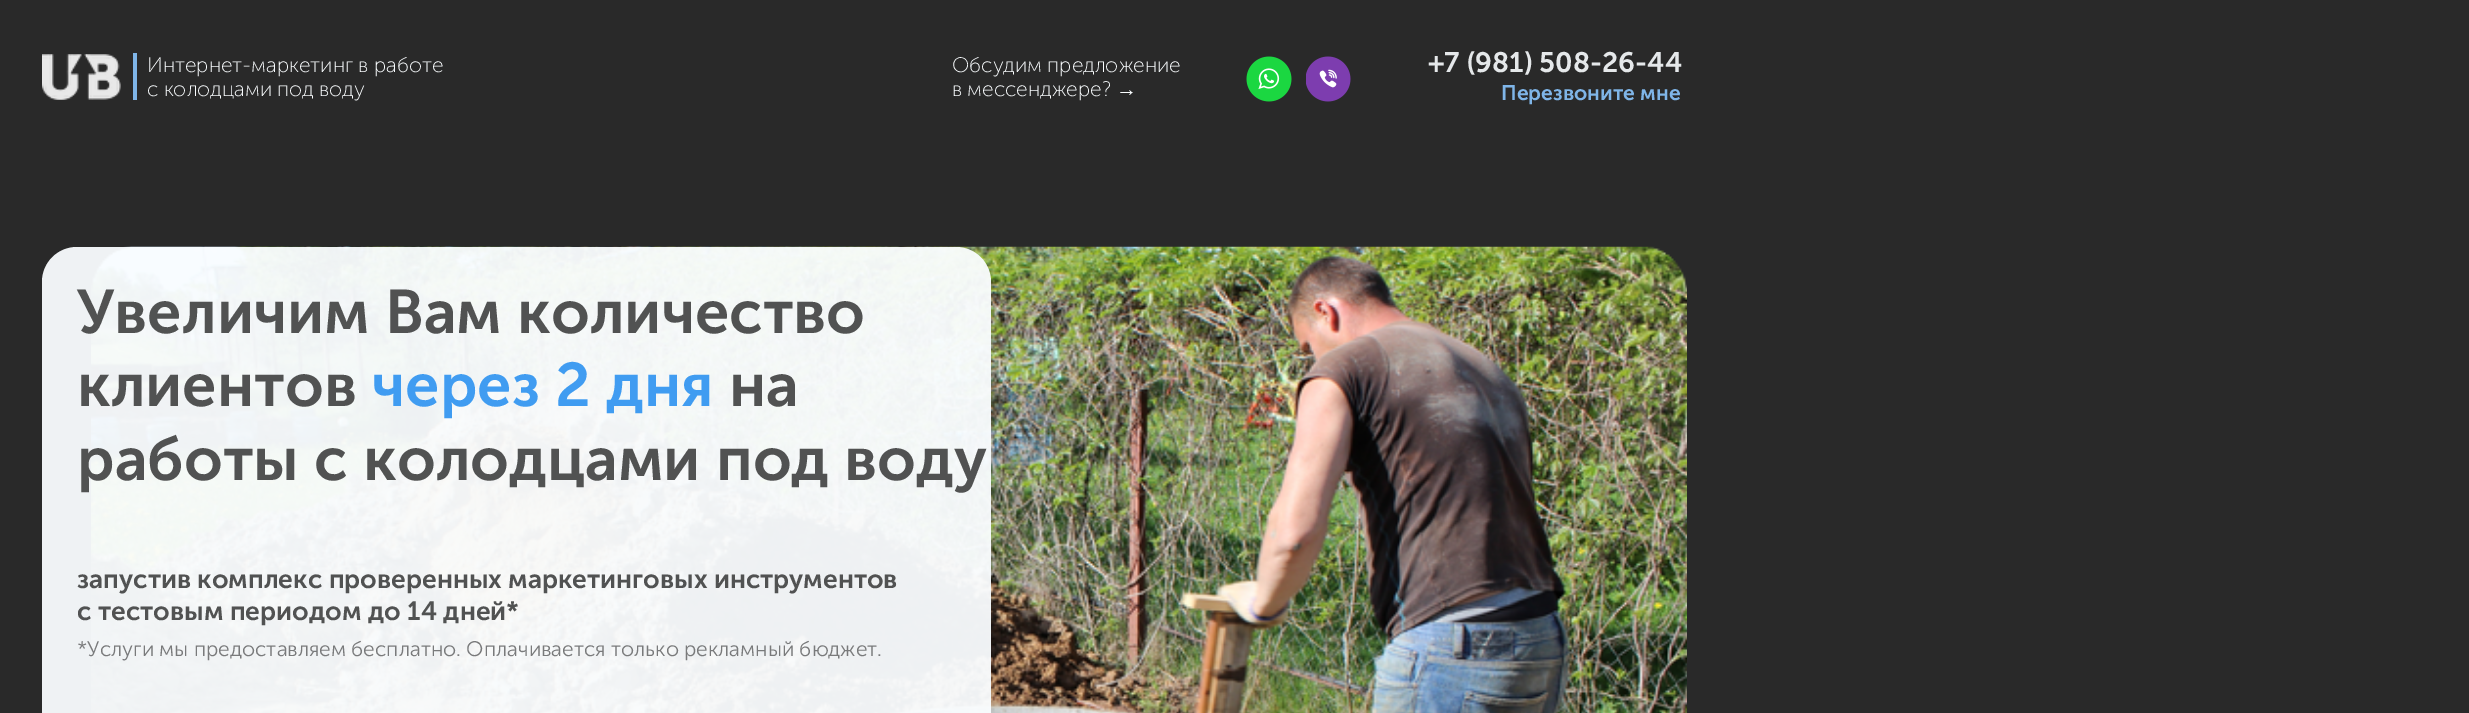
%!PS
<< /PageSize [2469 713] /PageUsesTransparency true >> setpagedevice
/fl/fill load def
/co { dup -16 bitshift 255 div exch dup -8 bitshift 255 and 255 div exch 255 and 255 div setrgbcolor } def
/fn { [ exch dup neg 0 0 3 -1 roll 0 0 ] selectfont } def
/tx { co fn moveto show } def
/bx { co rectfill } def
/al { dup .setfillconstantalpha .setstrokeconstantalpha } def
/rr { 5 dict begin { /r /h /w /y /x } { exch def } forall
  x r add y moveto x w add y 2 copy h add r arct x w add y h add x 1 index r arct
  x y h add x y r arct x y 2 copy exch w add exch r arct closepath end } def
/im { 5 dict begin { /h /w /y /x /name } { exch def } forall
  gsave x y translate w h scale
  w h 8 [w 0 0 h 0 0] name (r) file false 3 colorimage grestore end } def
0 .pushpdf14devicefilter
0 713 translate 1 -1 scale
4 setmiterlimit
0 0 2469 713 16#292929 bx
(media/1.raw) 42 54 79 46 im
133 53 4 47 16#7FB5E8 bx
(media/2.raw) 1246 56 46 46 im
(media/3.raw) 1306 56 45 46 im
(media/4.raw) 91 246 1596 467 im
0.95 al
16#FAFDFF co
42 247 949 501 35 rr fl
1 al
(Интернет-маркетинг в работе) 147 72 /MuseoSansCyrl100-Regular 21 16#FAFDFF tx
(с колодцами под воду) 147 96 /MuseoSansCyrl100-Regular 21 16#FAFDFF tx
(Обсудим предложение) 952 72 /MuseoSansCyrl100-Regular 21 16#FAFDFF tx
(в мессенджере?) 952 96 /MuseoSansCyrl100-Regular 21 16#FAFDFF tx
(→) 1116 96 /LiberationSans-Regular 21 16#FAFDFF tx
(+7 \(981\) 508-26-44) 1428 72 /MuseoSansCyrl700-Regular 28 16#E5E8EA tx
(Перезвоните мне) 1501 100 /MuseoSansCyrl700-Regular 21 16#7FB5E8 tx
(Увеличим Вам количество) 77 333 /MuseoSansCyrl700-Regular 61.25 16#515252 tx
(клиентов) 77 406 /MuseoSansCyrl700-Regular 61.25 16#515252 tx
(через 2 дня) 372 406 /MuseoSansCyrl700-Regular 61.25 16#409CF1 tx
(на) 729 406 /MuseoSansCyrl700-Regular 61.25 16#515252 tx
(работы с колодцами под воду) 77 480 /MuseoSansCyrl700-Regular 61.25 16#515252 tx
(запустив комплекс проверенных маркетинговых инструментов) 77 588 /MuseoSansCyrl700-Regular 26.25 16#515252 tx
(с тестовым периодом до 14 дней*) 77 620 /MuseoSansCyrl700-Regular 26.25 16#515252 tx
(*Услуги мы предоставляем бесплатно. Оплачивается только рекламный бюджет.) 77 656 /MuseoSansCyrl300-Regular 21 16#797A7B tx
.poppdf14devicefilter showpage
